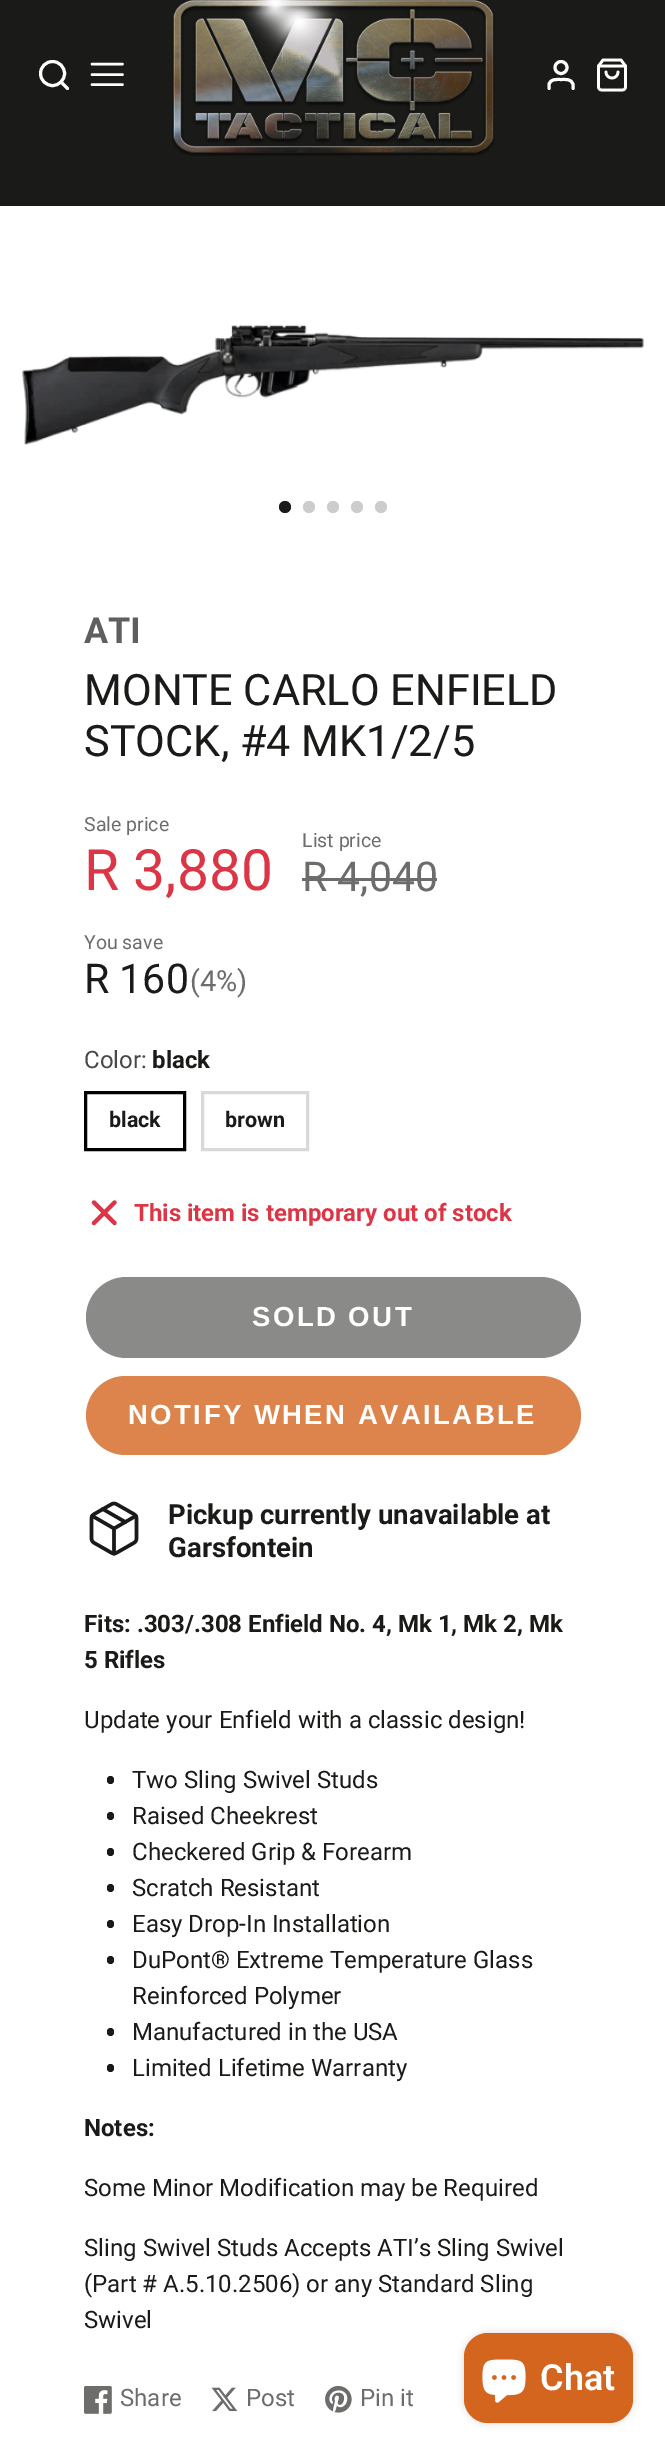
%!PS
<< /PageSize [665 2454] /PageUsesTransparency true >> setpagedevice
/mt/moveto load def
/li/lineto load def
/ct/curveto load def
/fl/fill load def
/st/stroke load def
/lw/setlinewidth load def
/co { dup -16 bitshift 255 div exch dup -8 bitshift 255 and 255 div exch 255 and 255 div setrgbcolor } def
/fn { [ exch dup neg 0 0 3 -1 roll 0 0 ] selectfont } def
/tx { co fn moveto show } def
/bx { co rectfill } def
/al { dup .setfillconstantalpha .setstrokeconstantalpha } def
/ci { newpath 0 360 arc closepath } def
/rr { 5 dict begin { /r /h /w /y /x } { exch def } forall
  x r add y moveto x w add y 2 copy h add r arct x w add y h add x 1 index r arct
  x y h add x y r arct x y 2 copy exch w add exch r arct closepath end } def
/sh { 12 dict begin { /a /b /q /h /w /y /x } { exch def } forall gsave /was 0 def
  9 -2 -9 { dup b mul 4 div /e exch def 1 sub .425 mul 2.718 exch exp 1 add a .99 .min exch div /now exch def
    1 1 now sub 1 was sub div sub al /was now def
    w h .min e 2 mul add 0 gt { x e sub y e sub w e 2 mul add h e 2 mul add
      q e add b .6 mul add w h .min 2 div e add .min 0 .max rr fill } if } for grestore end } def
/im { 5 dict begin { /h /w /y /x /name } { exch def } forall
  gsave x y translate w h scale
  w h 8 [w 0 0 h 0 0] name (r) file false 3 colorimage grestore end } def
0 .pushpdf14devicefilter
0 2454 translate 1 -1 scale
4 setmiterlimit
0 0 665 2454 16#FFFFFF bx
0 0 665 206 16#1A1B18 bx
16#FFFFFF co
3 lw
52.5 73.5 12 ci st
1 setlinecap
1 setlinejoin
67.5 88.5 mt 61 82 li st
2.5 lw
92 74.5 mt 122.5 74.5 li 92 64 mt 122.5 64 li 92 84.5 mt 122.5 84.5 li st
(media/1.raw) 172 0 323 156 im
3 lw
0 setlinecap
0 setlinejoin
561 67.5 6 ci st
1 setlinecap
1 setlinejoin
573 88.5 mt 573 84.5 li 571.5 78.5 565.5 79.5 561 79.5 ct 556.5 79.5 550.5 78.5 549 84.5 ct 549 88.5 li st
(media/2.raw) 597 58 30 34 im
(media/3.raw) 21 324 624 121 im
16#1A1B18 co
285 507 6 ci fl
16#CCCCCC co
309 507 6 ci fl
333 507 6 ci fl
357 507 6 ci fl
381 507 6 ci fl
302 878 135 3 16#6C6D6B bx
16#000000 co
0 setlinecap
0 setlinejoin
85.5 1092.5 99 57 rectstroke
16#D9D9D9 co
202.5 1092.5 105 57 rectstroke
16#DC3545 co
4.2 lw
1 setlinecap
1 setlinejoin
114.5 1202.5 mt 94 1223 li 94 1202.5 mt 114.5 1223 li st
16#8A8A89 co
86 1277 495 81 40.5 rr fl
16#DD844C co
86 1376 495 79 39.5 rr fl
(media/4.raw) 89 1501 50 55 im
16#1A1B18 co
107 1776 7 8 3.5 rr fl
107 1812 7 8 3.5 rr fl
107 1848 7 8 3.5 rr fl
107 1884 7 8 3.5 rr fl
107 1920 7 8 3.5 rr fl
107 1956 7 8 3.5 rr fl
107 2028 7 8 3.5 rr fl
107 2064 7 8 3.5 rr fl
(media/5.raw) 84 2386 28 28 im
(media/6.raw) 211 2387 27 25 im
(media/7.raw) 325 2385 27 28 im
16#000000 co
464 2333 169 90 24 4 .15 sh
16#D4651F co
464 2333 169 90 24 rr fl
(media/8.raw) 482 2359 44 44 im
(ATI) 84 643 /Roboto-Bold 36 16#5F5F5D tx
(MONTE CARLO ENFIELD) 84 705 /Roboto-Regular 43.25 16#1A1B18 tx
(STOCK, #4 MK1/2/5) 84 756 /Roboto-Regular 43.25 16#1A1B18 tx
(Sale price) 84 831 /Roboto-Regular 19.5 16#6C6D6B tx
(R 3,880) 84 890 /Roboto-Regular 57 16#DC3545 tx
(List price) 302 847 /Roboto-Regular 19.5 16#6C6D6B tx
(R 4,040) 302 891 /Roboto-Regular 41 16#6C6D6B tx
(You save) 84 949 /Roboto-Regular 19.5 16#6C6D6B tx
(R 160) 84 993 /Roboto-Regular 41 16#1A1B18 tx
(\(4%\)) 190 991 /Roboto-Regular 29 16#6C6D6B tx
(Color:) 84 1068 /Roboto-Regular 24 16#484946 tx
(black) 152 1068 /Roboto-Bold 24 16#1A1B18 tx
(black) 109 1127 /Roboto-Bold 21.5 16#1A1B18 tx
(brown) 225 1127 /Roboto-Bold 21.5 16#1A1B18 tx
(This item is temporary out of stock) 134 1221 /Roboto-Bold 24 16#DC3545 tx
/LiberationSans-Bold 27.6 fn
16#FFFFFF co
252 1326 mt 2.4 0 (SOLD OUT) ashow
128 1424 mt 2.4 0 (NOTIFY WHEN AVAILABLE) ashow
(Pickup currently unavailable at) 168 1524 /Roboto-Bold 27.6 16#1A1B18 tx
(Garsfontein) 168 1557 /Roboto-Bold 27.6 16#1A1B18 tx
(Fits: .303/.308 Enfield No. 4, Mk 1, Mk 2, Mk) 84 1632 /Roboto-Bold 24 16#1A1B18 tx
(5 Rifles) 84 1668 /Roboto-Bold 24 16#1A1B18 tx
(Update your Enfield with a classic design!) 84 1728 /Roboto-Regular 24 16#1A1B18 tx
(Two Sling Swivel Studs) 132 1788 /Roboto-Regular 24 16#1A1B18 tx
(Raised Cheekrest) 132 1824 /Roboto-Regular 24 16#1A1B18 tx
(Checkered Grip & Forearm) 132 1860 /Roboto-Regular 24 16#1A1B18 tx
(Scratch Resistant) 132 1896 /Roboto-Regular 24 16#1A1B18 tx
(Easy Drop-In Installation) 132 1932 /Roboto-Regular 24 16#1A1B18 tx
(DuPont® Extreme Temperature Glass) 132 1968 /Roboto-Regular 24 16#1A1B18 tx
(Reinforced Polymer) 132 2004 /Roboto-Regular 24 16#1A1B18 tx
(Manufactured in the USA) 132 2040 /Roboto-Regular 24 16#1A1B18 tx
(Limited Lifetime Warranty) 132 2076 /Roboto-Regular 24 16#1A1B18 tx
(Notes:) 84 2136 /Roboto-Bold 24 16#1A1B18 tx
(Some Minor Modification may be Required) 84 2196 /Roboto-Regular 24 16#1A1B18 tx
(Sling Swivel Studs Accepts ATI’s Sling Swivel) 84 2256 /Roboto-Regular 24 16#1A1B18 tx
(\(Part # A.5.10.2506\) or any Standard Sling) 84 2292 /Roboto-Regular 24 16#1A1B18 tx
(Swivel) 84 2328 /Roboto-Regular 24 16#1A1B18 tx
(Share) 120 2406 /Roboto-Regular 24 16#6C6D6B tx
(Post) 246 2406 /Roboto-Regular 24 16#6C6D6B tx
(Pin it) 360 2406 /Roboto-Regular 24 16#6C6D6B tx
(Chat) 540 2390 /Roboto-SemiBold 36 16#FFFFFF tx
.poppdf14devicefilter showpage
